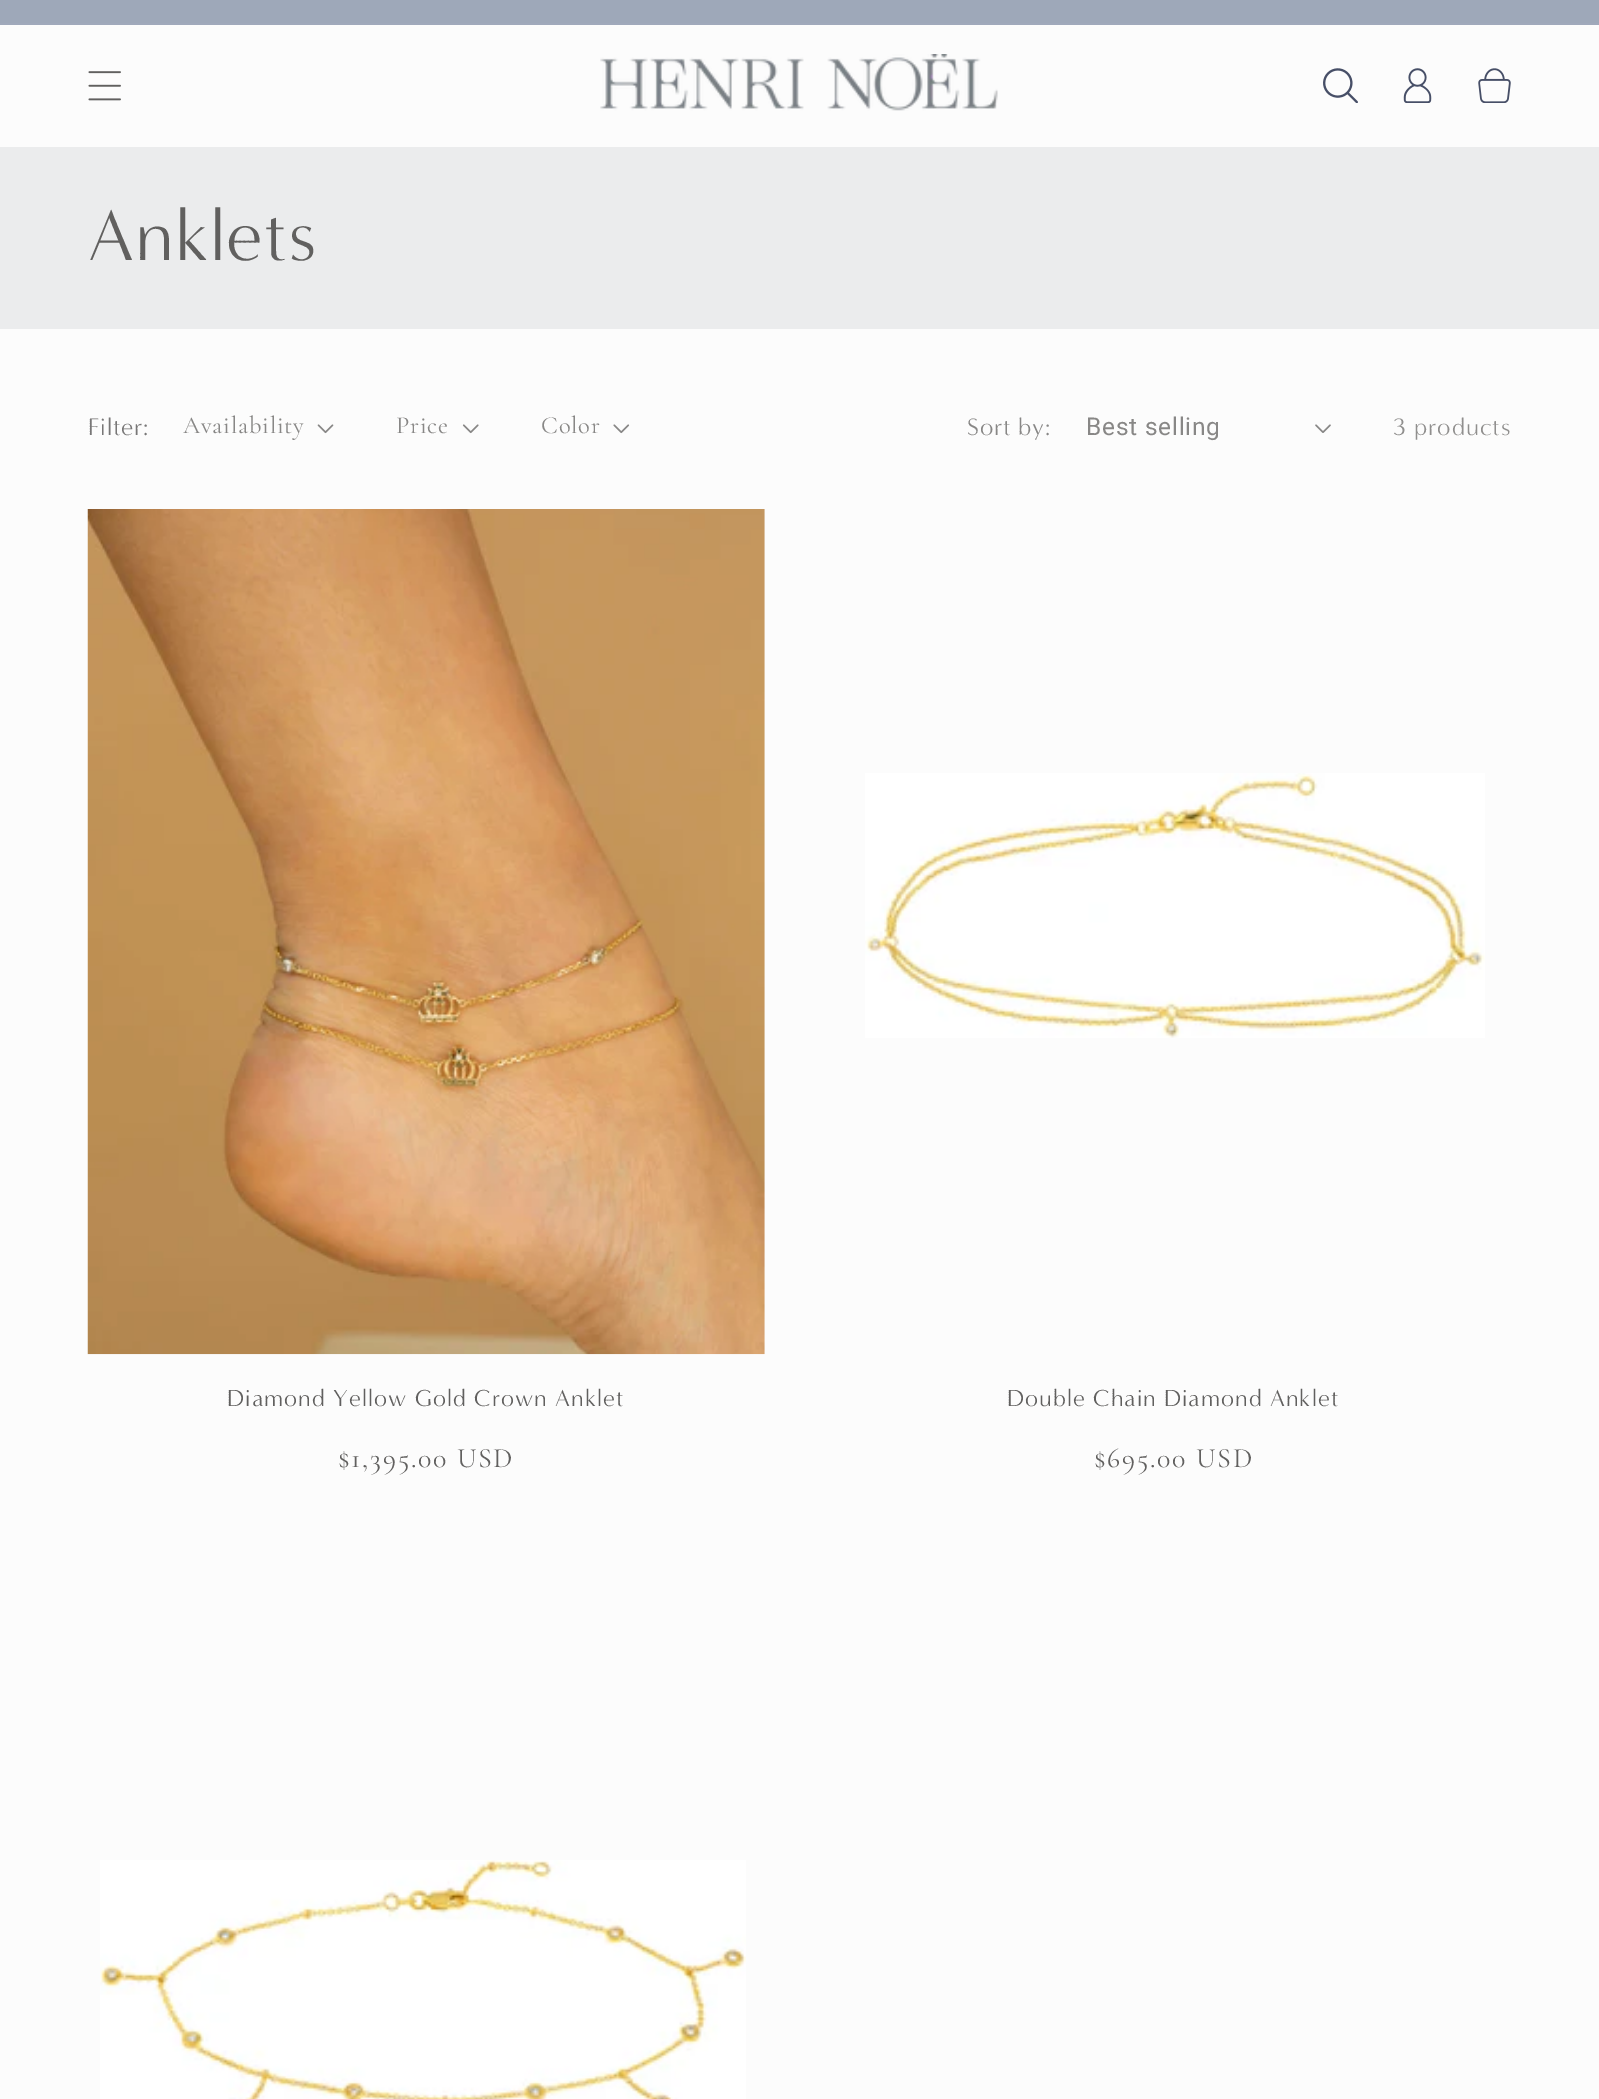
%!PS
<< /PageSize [1599 2099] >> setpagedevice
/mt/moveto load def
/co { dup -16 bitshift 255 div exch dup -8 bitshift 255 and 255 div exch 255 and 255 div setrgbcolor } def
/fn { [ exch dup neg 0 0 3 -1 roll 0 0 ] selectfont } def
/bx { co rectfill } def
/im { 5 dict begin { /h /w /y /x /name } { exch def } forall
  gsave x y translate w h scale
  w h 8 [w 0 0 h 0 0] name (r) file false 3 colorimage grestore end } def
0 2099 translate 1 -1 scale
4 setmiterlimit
0 0 1599 2099 16#FCFCFC bx
0 23 1599 2 16#A0A9BB bx
0 0 1599 23 16#9EA8B9 bx
(media/1.raw) 88 71 33 30 im
(media/2.raw) 600 54 398 57 im
(media/3.raw) 1323 68 35 35 im
(media/4.raw) 1403 68 29 35 im
(media/5.raw) 1478 68 33 35 im
0 147 1599 182 16#EBECED bx
(media/6.raw) 317 424 17 10 im
(media/7.raw) 462 424 17 10 im
(media/8.raw) 613 424 17 10 im
(media/9.raw) 1315 424 16 9 im
(media/10.raw) 87 509 678 846 im
(media/11.raw) 865 773 620 265 im
(media/12.raw) 100 1860 646 239 im
/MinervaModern-Regular 73.5 fn
16#61605F co
88 260 mt 1.1 0 (Anklets) ashow
/MinervaModern-Regular 24.5 fn
16#787777 co
88 435 mt .75 0 (Filter:) ashow
/CormorantGaramond-Regular 24.5 fn
16#888786 co
183 433 mt .75 0 (Availability) ashow
396 433 mt .75 0 (Price) ashow
541 433 mt .75 0 (Color) ashow
/MinervaModern-Regular 24.5 fn
967 435 mt .75 0 (Sort by:) ashow
/Roboto-Regular 24.5 fn
1086 435 mt .75 0 (Best selling) ashow
/MinervaModern-Regular 24.5 fn
16#908F8E co
1393 435 mt 1 0 (3 products) ashow
/MinervaModern-Regular 23.9 fn
16#61605F co
227 1406 mt 1.1 0 (Diamond Yellow Gold Crown Anklet) ashow
/CormorantGaramond-Regular 28 fn
338 1467 mt 1.75 0 ($1,395.00 USD) ashow
/MinervaModern-Regular 23.9 fn
1007 1406 mt 1.1 0 (Double Chain Diamond Anklet) ashow
/CormorantGaramond-Regular 28 fn
1094 1467 mt 1.75 0 ($695.00 USD) ashow
showpage
